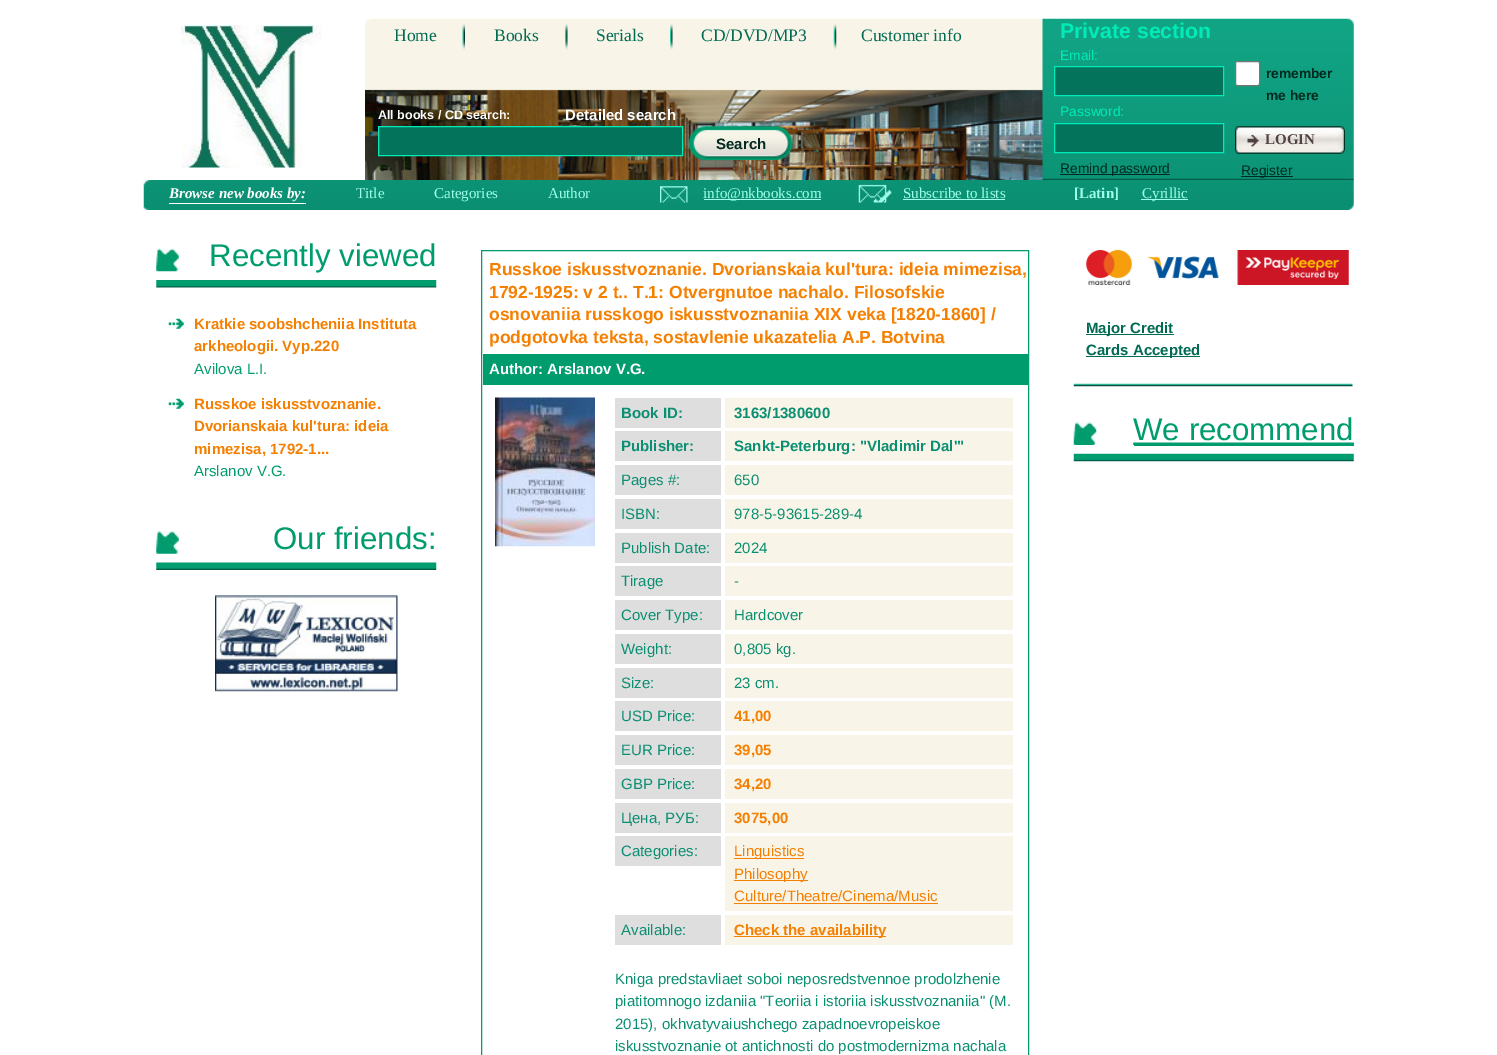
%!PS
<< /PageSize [1497 1055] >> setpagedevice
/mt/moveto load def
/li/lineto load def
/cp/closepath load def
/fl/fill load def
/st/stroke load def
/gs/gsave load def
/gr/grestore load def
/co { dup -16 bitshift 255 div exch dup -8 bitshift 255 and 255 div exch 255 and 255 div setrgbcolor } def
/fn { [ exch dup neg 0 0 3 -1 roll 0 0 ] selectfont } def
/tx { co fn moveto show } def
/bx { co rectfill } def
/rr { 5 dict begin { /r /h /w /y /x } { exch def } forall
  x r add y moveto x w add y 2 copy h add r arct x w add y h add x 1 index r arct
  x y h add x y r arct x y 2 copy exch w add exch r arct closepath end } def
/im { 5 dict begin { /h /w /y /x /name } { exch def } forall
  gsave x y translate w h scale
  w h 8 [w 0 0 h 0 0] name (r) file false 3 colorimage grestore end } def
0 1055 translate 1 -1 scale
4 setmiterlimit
0 0 1497 1055 16#FFFFFF bx
(media/1.raw) 181 25 141 143 im
(media/2.raw) 365 18 989 162 im
(media/3.raw) 462 23 3 27 im
(media/4.raw) 565 23 3 27 im
(media/4.raw) 670 23 3 27 im
(media/5.raw) 833 23 4 27 im
16#03735B co
1054.5 66.5 mt 1223.5 66.5 li 1223.5 95.5 li 1054.5 95.5 li cp gs fl gr
16#00EBB7 co
st
16#03735B co
1054.5 123.5 mt 1223.5 123.5 li 1223.5 152.5 li 1054.5 152.5 li cp gs fl gr
16#00EBB7 co
st
1060 174 110 1 16#002920 bx
16#FFFFFF co
1235.5 61.5 24 24 2 rr gs fl gr
16#767676 co
st
(media/6.raw) 1235 126 110 28 im
1241 176 52 1 16#002920 bx
16#03735B co
378.5 126.5 mt 682.5 126.5 li 682.5 155.5 li 378.5 155.5 li cp gs fl gr
16#00EBB7 co
st
(media/7.raw) 688 126 105 34 im
(media/8.raw) 143 180 1211 30 im
169 203 137 1 16#FFFFFF bx
(media/9.raw) 660 186 30 17 im
704 199 117 1 16#9EFFEA bx
(media/10.raw) 858 184 34 19 im
903 199 102 1 16#9EFFEA bx
1141 199 47 1 16#9EFFEA bx
(media/11.raw) 156 248 23 24 im
(media/12.raw) 156 280 281 8 im
(media/13.raw) 168 318 16 11 im
(media/13.raw) 168 398 16 11 im
(media/14.raw) 156 531 23 23 im
(media/15.raw) 156 562 281 8 im
(media/16.raw) 215 595 183 97 im
16#009C6E co
481.5 250.5 547 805 rectstroke
483 354 545 31 16#009C6E bx
(media/17.raw) 495 397 100 150 im
615 398 106 30 16#DEDEDE bx
725 398 288 30 16#F8F5E8 bx
615 431 106 30 16#DEDEDE bx
725 431 288 30 16#F8F5E8 bx
615 465 106 30 16#DEDEDE bx
725 465 288 30 16#F8F5E8 bx
615 499 106 30 16#DEDEDE bx
725 499 288 30 16#F8F5E8 bx
615 533 106 30 16#DEDEDE bx
725 533 288 30 16#F8F5E8 bx
615 566 106 30 16#DEDEDE bx
725 566 288 30 16#F8F5E8 bx
615 600 106 30 16#DEDEDE bx
725 600 288 30 16#F8F5E8 bx
615 634 106 30 16#DEDEDE bx
725 634 288 30 16#F8F5E8 bx
615 668 106 30 16#DEDEDE bx
725 668 288 30 16#F8F5E8 bx
615 701 106 30 16#DEDEDE bx
725 701 288 30 16#F8F5E8 bx
615 735 106 30 16#DEDEDE bx
725 735 288 30 16#F8F5E8 bx
615 769 106 30 16#DEDEDE bx
725 769 288 30 16#F8F5E8 bx
615 803 106 30 16#DEDEDE bx
725 803 288 30 16#F8F5E8 bx
615 836 106 30 16#DEDEDE bx
725 836 288 75 16#F8F5E8 bx
734 858 70 1 16#F57F00 bx
734 880 74 1 16#F57F00 bx
734 903 204 1 16#F57F00 bx
615 915 106 30 16#DEDEDE bx
725 915 288 30 16#F8F5E8 bx
734 936 152 1 16#F57F00 bx
(media/18.raw) 1073 383 280 4 im
(media/19.raw) 1086 250 263 35 im
1086 334 88 1 16#006B53 bx
1086 356 114 1 16#006B53 bx
(media/20.raw) 1073 422 24 23 im
(media/21.raw) 1073 442 281 20 im
1134 443 220 3 16#009C6E bx
(Home) 394 41 /LiberationSerif-Regular 17.5 16#006A53 tx
(Books) 494 41 /LiberationSerif-Regular 17.5 16#006A53 tx
(Serials) 596 41 /LiberationSerif-Regular 17.5 16#006A53 tx
(CD/DVD/MP3) 701 41 /LiberationSerif-Regular 17.5 16#006A53 tx
(Customer info) 861 41 /LiberationSerif-Regular 17.5 16#006A53 tx
(Private section) 1060 38 /LiberationSans-Bold 21.25 16#00EBB7 tx
(Email:) 1060 60 /LiberationSans-Regular 13.75 16#00EBB7 tx
(Password:) 1060 116 /LiberationSans-Regular 13.75 16#00EBB7 tx
(Remind password) 1060 173 /LiberationSans-Regular 13.75 16#002920 tx
(remember) 1266 78 /LiberationSans-Bold 13.75 16#002920 tx
(me here) 1266 100 /LiberationSans-Bold 13.75 16#002920 tx
(LOGIN) 1265 144 /LiberationSerif-Bold 15 16#514141 tx
(Register) 1241 175 /LiberationSans-Regular 13.75 16#002920 tx
(All books / CD search:) 378 119 /LiberationSans-Bold 12.5 16#FFFFFF tx
(Detailed search) 565 120 /LiberationSans-Bold 15 16#FFFFFF tx
(Search) 716 149 /LiberationSans-Bold 15 16#002920 tx
(Browse new books by:) 169 198 /LiberationSerif-BoldItalic 15 16#FFFFFF tx
(Title) 356 198 /LiberationSerif-Regular 15 16#9EFFEA tx
(Categories) 434 198 /LiberationSerif-Regular 15 16#9EFFEA tx
(Author) 548 198 /LiberationSerif-Regular 15 16#9EFFEA tx
(info@nkbooks.com) 703 198 /LiberationSerif-Regular 15 16#9EFFEA tx
(Subscribe to lists) 903 198 /LiberationSerif-Regular 15 16#9EFFEA tx
([Latin]) 1074 198 /LiberationSerif-Bold 15 16#9EFFEA tx
(Cyrillic) 1142 198 /LiberationSerif-Regular 15 16#9EFFEA tx
(Recently viewed) 209 266 /LiberationSans-Regular 31.25 16#009C6E tx
(Kratkie soobshcheniia Instituta) 194 329 /LiberationSans-Bold 15 16#F57F00 tx
(arkheologii. Vyp.220) 194 351 /LiberationSans-Bold 15 16#F57F00 tx
(Avilova L.I.) 194 374 /LiberationSans-Regular 15 16#009C6E tx
(Russkoe iskusstvoznanie.) 194 409 /LiberationSans-Bold 15 16#F57F00 tx
(Dvorianskaia kul'tura: ideia) 194 431 /LiberationSans-Bold 15 16#F57F00 tx
(mimezisa, 1792-1...) 194 454 /LiberationSans-Bold 15 16#F57F00 tx
(Arslanov V.G.) 194 476 /LiberationSans-Regular 15 16#009C6E tx
(Our friends:) 273 549 /LiberationSans-Regular 31.25 16#009C6E tx
(Russkoe iskusstvoznanie. Dvorianskaia kul'tura: ideia mimezisa,) 489 275 /LiberationSans-Bold 17.5 16#F57F00 tx
(1792-1925: v 2 t.. T.1: Otvergnutoe nachalo. Filosofskie) 489 298 /LiberationSans-Bold 17.5 16#F57F00 tx
(osnovaniia russkogo iskusstvoznaniia XIX veka [1820-1860] /) 489 320 /LiberationSans-Bold 17.5 16#F57F00 tx
(podgotovka teksta, sostavlenie ukazatelia A.P. Botvina) 489 343 /LiberationSans-Bold 17.5 16#F57F00 tx
(Author: Arslanov V.G.) 489 374 /LiberationSans-Bold 15 16#FFFFFF tx
(Book ID:) 621 418 /LiberationSans-Bold 15 16#0B8F72 tx
(3163/1380600) 734 418 /LiberationSans-Bold 15 16#0B8F72 tx
(Publisher:) 621 451 /LiberationSans-Bold 15 16#0B8F72 tx
(Sankt-Peterburg: "Vladimir Dal'") 734 451 /LiberationSans-Bold 15 16#0B8F72 tx
(Pages #:) 621 485 /LiberationSans-Regular 15 16#0B8F72 tx
(650) 734 485 /LiberationSans-Regular 15 16#0B8F72 tx
(ISBN:) 621 519 /LiberationSans-Regular 15 16#0B8F72 tx
(978-5-93615-289-4) 734 519 /LiberationSans-Regular 15 16#0B8F72 tx
(Publish Date:) 621 553 /LiberationSans-Regular 15 16#0B8F72 tx
(2024) 734 553 /LiberationSans-Regular 15 16#0B8F72 tx
(Tirage) 621 586 /LiberationSans-Regular 15 16#0B8F72 tx
(-) 734 586 /LiberationSans-Regular 15 16#0B8F72 tx
(Cover Type:) 621 620 /LiberationSans-Regular 15 16#0B8F72 tx
(Hardcover) 734 620 /LiberationSans-Regular 15 16#0B8F72 tx
(Weight:) 621 654 /LiberationSans-Regular 15 16#0B8F72 tx
(0,805 kg.) 734 654 /LiberationSans-Regular 15 16#0B8F72 tx
(Size:) 621 688 /LiberationSans-Regular 15 16#0B8F72 tx
(23 cm.) 734 688 /LiberationSans-Regular 15 16#0B8F72 tx
(USD Price:) 621 721 /LiberationSans-Regular 15 16#0B8F72 tx
(41,00) 734 721 /LiberationSans-Bold 15 16#F57F00 tx
(EUR Price:) 621 755 /LiberationSans-Regular 15 16#0B8F72 tx
(39,05) 734 755 /LiberationSans-Bold 15 16#F57F00 tx
(GBP Price:) 621 789 /LiberationSans-Regular 15 16#0B8F72 tx
(34,20) 734 789 /LiberationSans-Bold 15 16#F57F00 tx
(Цена, РУБ:) 621 823 /LiberationSans-Regular 15 16#0B8F72 tx
(3075,00) 734 823 /LiberationSans-Bold 15 16#F57F00 tx
(Categories:) 621 856 /LiberationSans-Regular 15 16#0B8F72 tx
(Linguistics) 734 856 /LiberationSans-Regular 15 16#F57F00 tx
(Philosophy) 734 879 /LiberationSans-Regular 15 16#F57F00 tx
(Culture/Theatre/Cinema/Music) 734 901 /LiberationSans-Regular 15 16#F57F00 tx
(Available:) 621 935 /LiberationSans-Regular 15 16#0B8F72 tx
(Check the availability) 734 935 /LiberationSans-Bold 15 16#F57F00 tx
(Kniga predstavliaet soboi neposredstvennoe prodolzhenie) 615 984 /LiberationSans-Regular 15 16#0B8F72 tx
(piatitomnogo izdaniia "Teoriia i istoriia iskusstvoznaniia" \(M.) 615 1006 /LiberationSans-Regular 15 16#0B8F72 tx
(2015\), okhvatyvaiushchego zapadnoevropeiskoe) 615 1029 /LiberationSans-Regular 15 16#0B8F72 tx
(iskusstvoznanie ot antichnosti do postmodernizma nachala) 615 1051 /LiberationSans-Regular 15 16#0B8F72 tx
(Major Credit) 1086 333 /LiberationSans-Bold 15 16#006A53 tx
(Cards Accepted) 1086 355 /LiberationSans-Bold 15 16#006A53 tx
(We recommend) 1133 440 /LiberationSans-Regular 31.25 16#009C6E tx
showpage
